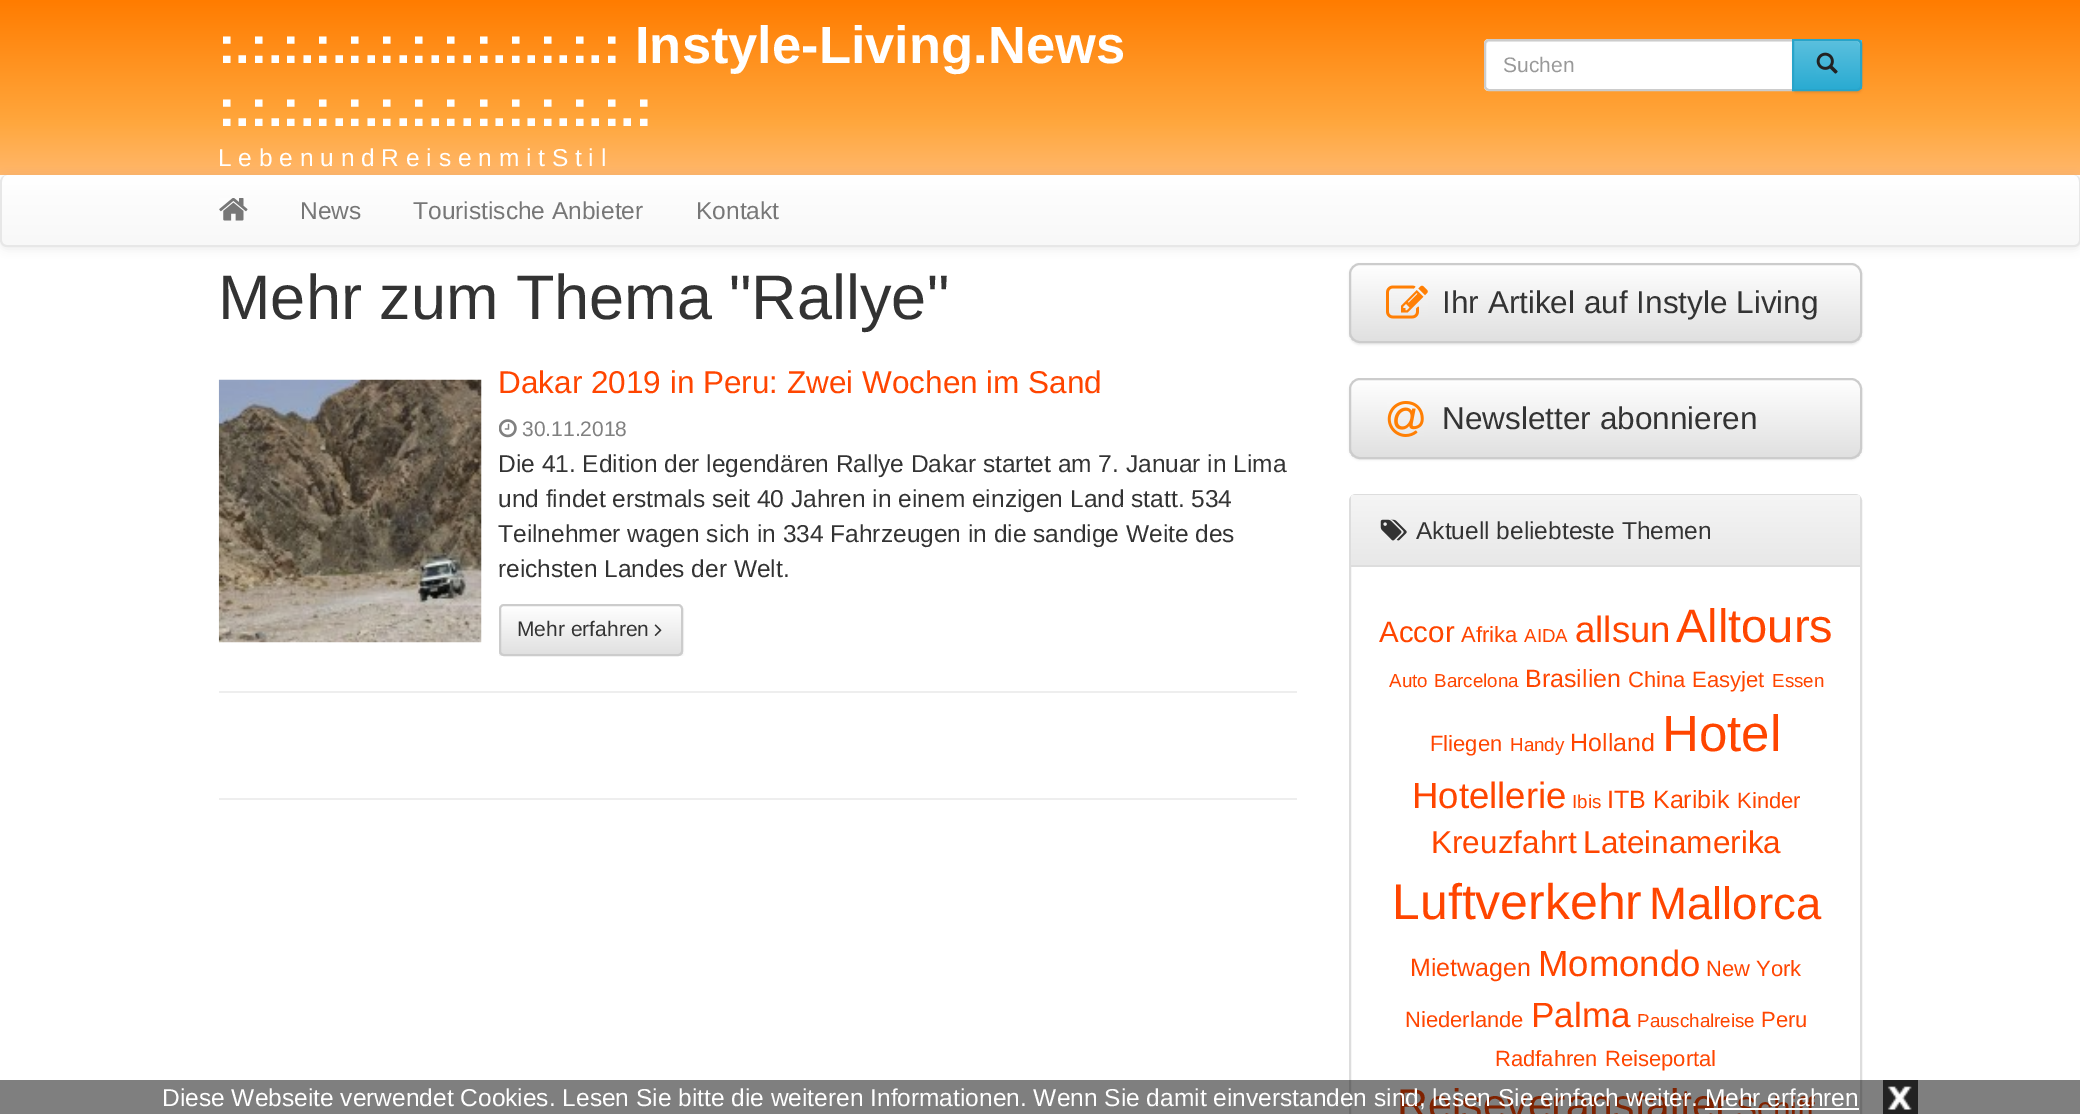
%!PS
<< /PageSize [2080 1114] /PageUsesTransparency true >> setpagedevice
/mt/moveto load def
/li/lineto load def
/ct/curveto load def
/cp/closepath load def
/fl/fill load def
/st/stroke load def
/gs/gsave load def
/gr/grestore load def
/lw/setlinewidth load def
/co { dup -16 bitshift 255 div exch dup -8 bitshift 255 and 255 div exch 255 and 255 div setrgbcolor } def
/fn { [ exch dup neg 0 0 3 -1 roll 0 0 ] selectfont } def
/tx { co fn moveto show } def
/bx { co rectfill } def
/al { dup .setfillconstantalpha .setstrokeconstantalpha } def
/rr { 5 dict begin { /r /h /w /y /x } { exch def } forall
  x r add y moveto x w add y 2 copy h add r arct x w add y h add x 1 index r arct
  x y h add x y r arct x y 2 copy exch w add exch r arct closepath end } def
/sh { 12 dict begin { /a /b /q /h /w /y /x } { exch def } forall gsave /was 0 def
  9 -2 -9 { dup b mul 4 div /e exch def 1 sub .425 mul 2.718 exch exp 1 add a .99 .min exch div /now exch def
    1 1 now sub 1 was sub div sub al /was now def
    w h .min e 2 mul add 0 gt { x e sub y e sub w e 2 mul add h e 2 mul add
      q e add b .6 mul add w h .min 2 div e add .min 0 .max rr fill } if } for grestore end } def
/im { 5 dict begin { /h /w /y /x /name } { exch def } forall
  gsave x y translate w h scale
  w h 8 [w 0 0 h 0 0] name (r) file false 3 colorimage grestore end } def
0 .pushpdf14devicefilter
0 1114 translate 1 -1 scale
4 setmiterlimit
0 0 2080 1114 16#FFFFFF bx
gs 0 0 mt 2080 0 li 2080 175 li 0 175 li cp clip newpath
<< /ShadingType 2 /ColorSpace /DeviceRGB /Coords [1040 0 1040 175] /Extend [true true] /Function << /FunctionType 3 /Domain [0 1] /Functions [<< /FunctionType 2 /Domain [0 1] /C0 [1 .486 0] /C1 [1 .655 .239] /N 1 >> << /FunctionType 2 /Domain [0 1] /C0 [1 .655 .239] /C1 [1 .718 .42] /N 1 >>] /Bounds [.7] /Encode [0 1 0 1] >> >> shfill gr
1489 39 mt 1794 39 li 1794 91 li 1489 91 li 1486 91 1484 89 1484 86 ct 1484 44 li 1484 41 1486 39 1489 39 ct cp fl
16#ECECEC co
1489 42 mt 1792 42 li 1792 40 li 1488 40 li 1486 41 1486 44 1486 46 ct 1486 44 1487 42 1489 42 ct cp fl
16#CCCCCC co
2 lw
1489 40 mt 1793 40 li 1793 90 li 1489 90 li 1487 90 1485 88 1485 86 ct 1485 44 li 1485 42 1487 40 1489 40 ct cp st
16#000000 co
1792 40 70 53 5 1 .07 sh
gs
1792 39 mt 1857 39 li 1860 39 1862 41 1862 44 ct 1862 86 li 1862 89 1860 91 1857 91 ct 1792 91 li cp clip newpath
gs 1794 40 mt 1862 40 li 1862 89 li 1794 89 li cp clip newpath
<< /ShadingType 2 /ColorSpace /DeviceRGB /Coords [1827 40 1827 89] /Extend [true true] /Function << /FunctionType 2 /Domain [0 1] /C0 [.357 .753 .871] /C1 [.165 .671 .824] /N 1 >> >> shfill gr
gr
0.15 al
16#FFFFFF co
1794 42 mt 1857 42 li 1859 42 1860 44 1860 46 ct 1860 44 li 1860 42 1858 40 1856 40 ct 1794 40 li cp fl
1 al
16#28A4C9 co
1793 40 mt 1857 40 li 1859 40 1861 42 1861 44 ct 1861 86 li 1861 88 1859 90 1857 90 ct 1793 90 li cp st
(media/1.raw) 1816 52 22 22 im
16#000000 co
1349 264 513 81 11 1 .07 sh
gs
1349 263 513 80 11 rr clip newpath
gs 1349 264 mt 1862 264 li 1862 341 li 1349 341 li cp clip newpath
<< /ShadingType 2 /ColorSpace /DeviceRGB /Coords [1606 264 1606 341] /Extend [true true] /Function << /FunctionType 2 /Domain [0 1] /C0 [1 1 1] /C1 [.878 .878 .878] /N 1 >> >> shfill gr
gr
16#CCCCCC co
1350 264 511 78 10 rr st
16#000000 co
0 177 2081 72 7 4.5 .07 sh
gs
0 175 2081 72 7 rr clip newpath
gs 7 175 mt 2074 175 li 2078 175 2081 178 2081 182 ct 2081 245 li 0 245 li 0 182 li 0 178 3 175 7 175 ct cp clip newpath
<< /ShadingType 2 /ColorSpace /DeviceRGB /Coords [1040 175 1040 245] /Extend [true true] /Function << /FunctionType 2 /Domain [0 1] /C0 [1 1 1] /C1 [.973 .973 .973] /N 1 >> >> shfill gr
gr
16#E7E7E7 co
7 175 mt 2074 175 li 2078 175 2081 178 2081 182 ct 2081 240 li 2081 244 2078 247 2074 247 ct 7 247 li 3 247 0 244 0 240 ct 0 182 li 0 178 3 175 7 175 ct cp 7 175 mt 2074 175 li 2077 175 2079 178 2079 182 ct 2079 240 li 2079 243 2077 245 2074 245 ct 7 245 li 4 245 2 243 2 240 ct 2 182 li 2 178 4 175 7 175 ct cp eofill
(media/2.raw) 219 198 29 23 im
(media/3.raw) 218 379 264 264 im
(media/4.raw) 499 419 18 19 im
gs
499 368 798 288 rectclip
16#000000 co
499 606 184 52 5 1 .07 sh
gr
gs
499 604 184 52 5 rr clip newpath
gs 499 606 mt 683 606 li 683 655 li 499 655 li cp clip newpath
<< /ShadingType 2 /ColorSpace /DeviceRGB /Coords [591 606 591 655] /Extend [true true] /Function << /FunctionType 2 /Domain [0 1] /C0 [1 1 1] /C1 [.878 .878 .878] /N 1 >> >> shfill gr
gr
16#CCCCCC co
500 605 182 50 4 rr st
(media/5.raw) 654 624 8 12 im
219 691 1078 2 16#EEEEEE bx
219 798 1078 2 16#EEEEEE bx
(media/6.raw) 1386 285 42 34 im
16#000000 co
1349 380 513 80 11 1 .07 sh
gs
1349 378 513 81 11 rr clip newpath
gs 1349 380 mt 1862 380 li 1862 457 li 1349 457 li cp clip newpath
<< /ShadingType 2 /ColorSpace /DeviceRGB /Coords [1606 380 1606 457] /Extend [true true] /Function << /FunctionType 2 /Domain [0 1] /C0 [1 1 1] /C1 [.878 .878 .878] /N 1 >> >> shfill gr
gr
16#CCCCCC co
1350 379 511 79 10 rr st
(media/7.raw) 1387 401 37 36 im
16#DDDDDD co
1350 495 511 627 6 rr st
gs 1356 495 mt 1855 495 li 1858 495 1860 497 1860 500 ct 1860 565 li 1351 565 li 1351 500 li 1351 497 1353 495 1356 495 ct cp clip newpath
<< /ShadingType 2 /ColorSpace /DeviceRGB /Coords [1606 495 1606 565] /Extend [true true] /Function << /FunctionType 2 /Domain [0 1] /C0 [.961 .961 .961] /C1 [.91 .91 .91] /N 1 >> >> shfill gr
1351 565 509 2 16#DDDDDD bx
(media/8.raw) 1380 519 27 22 im
(:.:.:.:.:.:.:.:.:.:.:.:.: Instyle-Living.News) 218 63 /LiberationSans-Bold 52.5 16#FFFFFF tx
(:.:.:.:.:.:.:.:.:.:.:.:.:.:) 218 126 /LiberationSans-Bold 52.5 16#FFFFFF tx
(L e b e n u n d R e i s e n m i t S t i l) 218 166 /LiberationSans-Regular 24.5 16#FFFFFF tx
(Suchen) 1503 72 /LiberationSans-Regular 21 16#999999 tx
(News) 300 219 /LiberationSans-Regular 24.5 16#777777 tx
(Touristische Anbieter) 413 219 /LiberationSans-Regular 24.5 16#777777 tx
(Kontakt) 696 219 /LiberationSans-Regular 24.5 16#777777 tx
(Mehr zum Thema "Rallye") 218 319 /LiberationSans-Regular 63 16#333333 tx
(Dakar 2019 in Peru: Zwei Wochen im Sand) 498 393 /LiberationSans-Regular 31.5 16#FF4500 tx
(30.11.2018) 522 436 /LiberationSans-Regular 21 16#808080 tx
(Die 41. Edition der legendären Rallye Dakar startet am 7. Januar in Lima) 498 472 /LiberationSans-Regular 24.5 16#333333 tx
(und findet erstmals seit 40 Jahren in einem einzigen Land statt. 534) 498 507 /LiberationSans-Regular 24.5 16#333333 tx
(Teilnehmer wagen sich in 334 Fahrzeugen in die sandige Weite des) 498 542 /LiberationSans-Regular 24.5 16#333333 tx
(reichsten Landes der Welt.) 498 577 /LiberationSans-Regular 24.5 16#333333 tx
(Mehr erfahren) 517 636 /LiberationSans-Regular 21 16#333333 tx
(Ihr Artikel auf Instyle Living) 1442 313 /LiberationSans-Regular 31.5 16#333333 tx
(Newsletter abonnieren) 1442 429 /LiberationSans-Regular 31.5 16#333333 tx
(Aktuell beliebteste Themen) 1416 539 /LiberationSans-Regular 24.5 16#333333 tx
(Accor) 1379 642 /LiberationSans-Regular 29.5 16#FF4500 tx
(Afrika) 1461 642 /LiberationSans-Regular 22 16#FF4500 tx
(AIDA) 1524 642 /LiberationSans-Regular 18.75 16#FF4500 tx
(allsun) 1575 642 /LiberationSans-Regular 36.5 16#FF4500 tx
(Alltours) 1676 642 /LiberationSans-Regular 47 16#FF4500 tx
(Auto) 1389 687 /LiberationSans-Regular 18.75 16#FF4500 tx
(Barcelona) 1434 687 /LiberationSans-Regular 18.75 16#FF4500 tx
(Brasilien) 1525 687 /LiberationSans-Regular 25 16#FF4500 tx
(China) 1628 687 /LiberationSans-Regular 22 16#FF4500 tx
(Easyjet) 1692 687 /LiberationSans-Regular 22 16#FF4500 tx
(Essen) 1772 687 /LiberationSans-Regular 18.75 16#FF4500 tx
(Fliegen) 1430 751 /LiberationSans-Regular 22 16#FF4500 tx
(Handy) 1510 751 /LiberationSans-Regular 18.75 16#FF4500 tx
(Holland) 1570 751 /LiberationSans-Regular 25 16#FF4500 tx
(Hotel) 1662 751 /LiberationSans-Regular 51 16#FF4500 tx
(Hotellerie) 1412 808 /LiberationSans-Regular 36.5 16#FF4500 tx
(Ibis) 1572 808 /LiberationSans-Regular 18.75 16#FF4500 tx
(ITB Karibik) 1607 808 /LiberationSans-Regular 25 16#FF4500 tx
(Kinder) 1737 808 /LiberationSans-Regular 22 16#FF4500 tx
(Kreuzfahrt) 1431 853 /LiberationSans-Regular 31.5 16#FF4500 tx
(Lateinamerika) 1583 853 /LiberationSans-Regular 31.5 16#FF4500 tx
(Luftverkehr) 1392 919 /LiberationSans-Regular 50 16#FF4500 tx
(Mallorca) 1649 919 /LiberationSans-Regular 45.5 16#FF4500 tx
(Mietwagen) 1410 976 /LiberationSans-Regular 25 16#FF4500 tx
(Momondo) 1538 976 /LiberationSans-Regular 36.5 16#FF4500 tx
(New York) 1706 976 /LiberationSans-Regular 22 16#FF4500 tx
(Niederlande) 1405 1027 /LiberationSans-Regular 22 16#FF4500 tx
(Palma) 1531 1027 /LiberationSans-Regular 35 16#FF4500 tx
(Pauschalreise) 1637 1027 /LiberationSans-Regular 18.75 16#FF4500 tx
(Peru) 1761 1027 /LiberationSans-Regular 22 16#FF4500 tx
(Radfahren) 1495 1066 /LiberationSans-Regular 22 16#FF4500 tx
(Reiseportal) 1605 1066 /LiberationSans-Regular 22 16#FF4500 tx
(Reiseveranstalter) 1397 1119 /LiberationSans-Regular 42.75 16#FF4500 tx
(Schiff) 1736 1119 /LiberationSans-Regular 31.5 16#FF4500 tx
0.5 al
0 1080 2080 34 16#000000 bx
1 al
(Diese Webseite verwendet Cookies. Lesen Sie bitte die weiteren Informationen. Wenn Sie damit einverstanden sind, lesen Sie einfach weiter. Mehr erfahren) 162 1106 /LiberationSans-Regular 24.5 16#FFFFFF tx
1883 1080 35 34 16#222222 bx
(media/9.raw) 1887 1086 25 24 im
1705 1108 154 2 16#FFFFFF bx
.poppdf14devicefilter showpage
